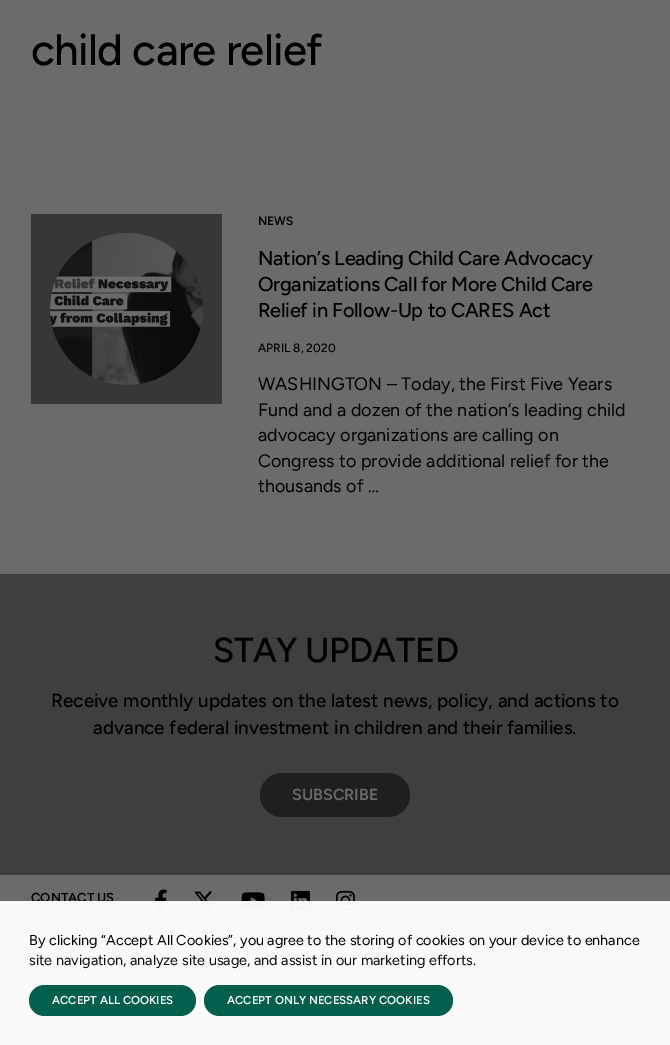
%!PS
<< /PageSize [670 1045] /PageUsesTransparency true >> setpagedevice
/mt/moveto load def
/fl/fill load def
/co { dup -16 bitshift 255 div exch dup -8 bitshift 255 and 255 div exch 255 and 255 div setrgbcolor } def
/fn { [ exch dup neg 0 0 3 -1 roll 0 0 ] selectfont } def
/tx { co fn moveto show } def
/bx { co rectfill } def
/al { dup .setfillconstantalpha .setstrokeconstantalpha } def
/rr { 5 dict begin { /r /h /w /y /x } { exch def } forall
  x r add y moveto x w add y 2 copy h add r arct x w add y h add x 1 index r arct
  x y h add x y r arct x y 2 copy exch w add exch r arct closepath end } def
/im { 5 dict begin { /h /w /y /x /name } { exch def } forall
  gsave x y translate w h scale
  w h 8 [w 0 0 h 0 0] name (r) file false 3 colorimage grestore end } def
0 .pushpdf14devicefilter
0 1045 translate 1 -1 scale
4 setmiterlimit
0 0 670 1045 16#6B6B6B bx
31 214 191 190 16#373737 bx
(media/1.raw) 50 233 153 152 im
0 574 670 301 16#3F3F3F bx
16#1F1F1F co
260 773 150 44 22 rr fl
(media/2.raw) 154 889 13 23 im
(media/3.raw) 194 891 20 19 im
(media/4.raw) 241 892 24 17 im
(media/5.raw) 291 890 19 20 im
(media/6.raw) 336 890 19 20 im
/Figtree-Medium 44 fn
16#000000 co
31 65 mt -.7 0 (child care relief) ashow
(NEWS) 258 225 /Figtree-SemiBold 12 16#000000 tx
/Figtree-Medium 20 fn
258 265 mt -.3 0 (Nation’s Leading Child Care Advocacy) ashow
258 291 mt -.3 0 (Organizations Call for More Child Care) ashow
258 317 mt -.3 0 (Relief in Follow-Up to CARES Act) ashow
(APRIL 8, 2020) 258 352 /Figtree-Medium 12 16#000000 tx
(WASHINGTON – Today, the First Five Years) 258 390 /Figtree-Regular 18 16#000000 tx
(Fund and a dozen of the nation’s leading child) 258 416 /Figtree-Regular 18 16#000000 tx
(advocacy organizations are calling on) 258 441 /Figtree-Regular 18 16#000000 tx
(Congress to provide additional relief for the) 258 467 /Figtree-Regular 18 16#000000 tx
(thousands of …) 258 492 /Figtree-Regular 18 16#000000 tx
/Figtree-Medium 34.75 fn
213 662 mt -.5 0 (STAY UPDATED) ashow
(Receive monthly updates on the latest news, policy, and actions to) 51 707 /Figtree-Medium 18.9 16#000000 tx
(advance federal investment in children and their families.) 93 734 /Figtree-Medium 18.9 16#000000 tx
(SUBSCRIBE) 292 800 /Figtree-SemiBold 16 16#6B6B6B tx
(CONTACT US) 31 902 /Figtree-SemiBold 13 16#000000 tx
0.96 al
0 901 670 144 16#FFFFFF bx
1 al
(By clicking “Accept All Cookies”, you agree to the storing of cookies on your device to enhance) 29 945 /Figtree-Regular 14.4 16#000000 tx
(site navigation, analyze site usage, and assist in our marketing efforts.) 29 965 /Figtree-Regular 14.4 16#0A0A0A tx
16#045F4F co
29 985 167 31 15.5 rr fl
(ACCEPT ALL COOKIES) 52 1004 /Figtree-SemiBold 11.5 16#F9F9F9 tx
16#045F4F co
204 985 249 31 15.5 rr fl
(ACCEPT ONLY NECESSARY COOKIES) 227 1004 /Figtree-SemiBold 11.5 16#F9F9F9 tx
.poppdf14devicefilter showpage
